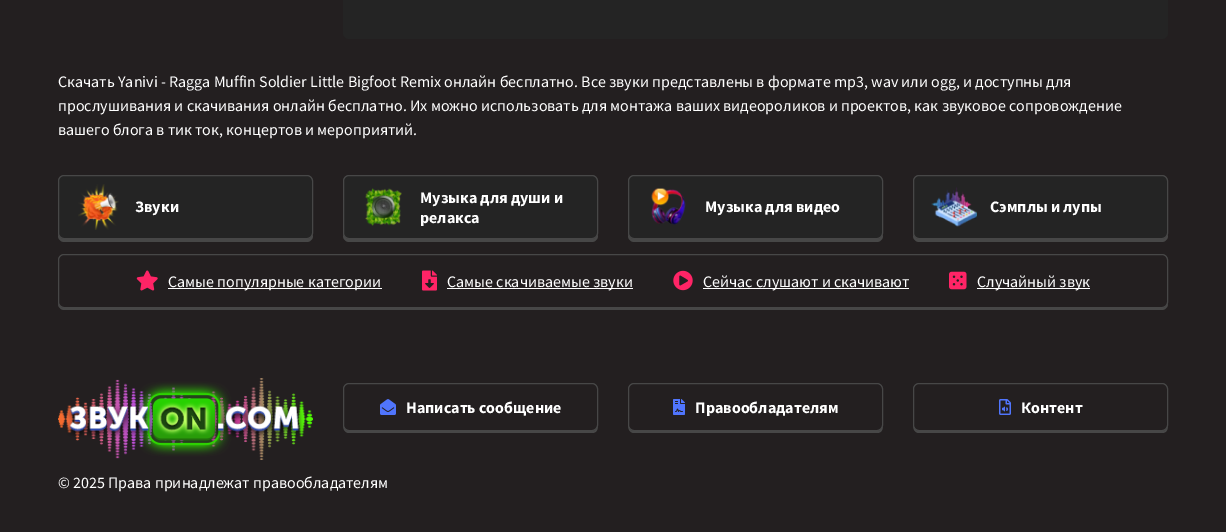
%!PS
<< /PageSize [1226 532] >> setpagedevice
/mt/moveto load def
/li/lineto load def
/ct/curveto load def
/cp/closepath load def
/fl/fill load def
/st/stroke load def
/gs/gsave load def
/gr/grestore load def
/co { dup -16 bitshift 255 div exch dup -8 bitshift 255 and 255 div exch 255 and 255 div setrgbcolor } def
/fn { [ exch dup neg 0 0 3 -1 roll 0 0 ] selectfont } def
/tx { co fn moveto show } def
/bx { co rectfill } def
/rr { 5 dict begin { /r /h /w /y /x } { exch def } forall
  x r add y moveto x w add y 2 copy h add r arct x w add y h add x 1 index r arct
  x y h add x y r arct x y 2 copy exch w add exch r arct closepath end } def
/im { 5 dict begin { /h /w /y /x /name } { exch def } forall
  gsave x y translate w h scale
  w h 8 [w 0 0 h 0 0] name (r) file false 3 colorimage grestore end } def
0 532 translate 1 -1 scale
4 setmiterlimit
0 0 1226 532 16#231F20 bx
16#242424 co
343 -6 825 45 6 rr fl
16#474747 co
58 233 mt 58 236 li 58 239 61 242 64 242 ct 307 242 li 310 242 313 239 313 236 ct 313 233 li 313 236 310 239 307 239 ct 64 239 li 61 239 58 236 58 233 ct cp fl
16#242424 co
58.5 175.5 254 63 5.5 rr gs fl gr
16#474747 co
st
(media/1.raw) 78 184 41 46 im
343 233 mt 343 236 li 343 239 346 242 349 242 ct 592 242 li 595 242 598 239 598 236 ct 598 233 li 598 236 595 239 592 239 ct 349 239 li 346 239 343 236 343 233 ct cp fl
16#242424 co
343.5 175.5 254 63 5.5 rr gs fl gr
16#474747 co
st
(media/2.raw) 365 188 37 38 im
628 233 mt 628 236 li 628 239 631 242 634 242 ct 877 242 li 880 242 883 239 883 236 ct 883 233 li 883 236 880 239 877 239 ct 634 239 li 631 239 628 236 628 233 ct cp fl
16#242424 co
628.5 175.5 254 63 5.5 rr gs fl gr
16#474747 co
st
(media/3.raw) 651 188 35 37 im
913 233 mt 913 236 li 913 239 916 242 919 242 ct 1162 242 li 1165 242 1168 239 1168 236 ct 1168 233 li 1168 236 1165 239 1162 239 ct 919 239 li 916 239 913 236 913 233 ct cp fl
16#242424 co
913.5 175.5 254 63 5.5 rr gs fl gr
16#474747 co
st
(media/4.raw) 931 187 46 40 im
58 302 mt 58 304 li 58 307 61 310 64 310 ct 1162 310 li 1165 310 1168 307 1168 304 ct 1168 302 li 1168 305 1165 308 1162 308 ct 64 308 li 61 308 58 305 58 302 ct cp fl
16#231F20 co
58.5 254.5 1109 53 5.5 rr gs fl gr
16#474747 co
st
(media/5.raw) 136 270 22 21 im
168 288 214 1 16#FFFFFF bx
(media/6.raw) 422 270 15 21 im
447 288 186 1 16#FFFFFF bx
(media/7.raw) 673 270 20 21 im
703 288 206 1 16#FFFFFF bx
(media/8.raw) 949 271 18 19 im
977 288 113 1 16#FFFFFF bx
(media/9.raw) 58 378 255 82 im
16#474747 co
343 425 mt 343 428 344 432 348 433 ct 592 433 li 597 433 598 429 598 425 ct 598 428 595 431 592 431 ct 349 431 li 346 431 343 428 343 425 ct cp fl
16#231F20 co
343.5 383.5 254 47 5.5 rr gs fl gr
16#474747 co
st
(media/10.raw) 380 399 16 16 im
628 425 mt 628 428 629 432 633 433 ct 877 433 li 882 433 883 429 883 425 ct 883 428 880 431 877 431 ct 634 431 li 631 431 628 428 628 425 ct cp fl
16#231F20 co
628.5 383.5 254 47 5.5 rr gs fl gr
16#474747 co
st
(media/11.raw) 673 399 12 16 im
913 425 mt 913 428 914 432 918 433 ct 1162 433 li 1167 433 1168 429 1168 425 ct 1168 428 1165 431 1162 431 ct 919 431 li 916 431 913 428 913 425 ct cp fl
16#231F20 co
913.5 383.5 254 47 5.5 rr gs fl gr
16#474747 co
st
(media/12.raw) 999 399 12 16 im
(Скачать Yanivi - Ragga Muffin Soldier Little Bigfoot Remix онлайн бесплатно. Все звуки представлены в формате mp3, wav или ogg, и доступны для) 58 87 /SourceSansPro-Regular 16 16#FFFFFF tx
(прослушивания и скачивания онлайн бесплатно. Их можно использовать для монтажа ваших видеороликов и проектов, как звуковое сопровождение) 58 111 /SourceSansPro-Regular 16 16#FFFFFF tx
(вашего блога в тик ток, концертов и мероприятий.) 58 135 /SourceSansPro-Regular 16 16#FFFFFF tx
(Звуки) 135 212 /SourceSansPro-Bold 16 16#FFFFFF tx
(Музыка для души и) 420 203 /SourceSansPro-Bold 16 16#FFFFFF tx
(релакса) 420 223 /SourceSansPro-Bold 16 16#FFFFFF tx
(Музыка для видео) 705 212 /SourceSansPro-Bold 16 16#FFFFFF tx
(Сэмплы и лупы) 990 212 /SourceSansPro-Bold 16 16#FFFFFF tx
(Самые популярные категории) 168 287 /SourceSansPro-Regular 16 16#FFFFFF tx
(Самые скачиваемые звуки) 447 287 /SourceSansPro-Regular 16 16#FFFFFF tx
(Сейчас слушают и скачивают) 703 287 /SourceSansPro-Regular 16 16#FFFFFF tx
(Случайный звук) 977 287 /SourceSansPro-Regular 16 16#FFFFFF tx
(Написать сообщение) 406 413 /SourceSansPro-Bold 16 16#FFFFFF tx
(Правообладателям) 695 413 /SourceSansPro-Bold 16 16#FFFFFF tx
(Контент) 1021 413 /SourceSansPro-Bold 16 16#FFFFFF tx
(© 2025 Права принадлежат правообладателям) 58 488 /SourceSansPro-Regular 16 16#FFFFFF tx
showpage
